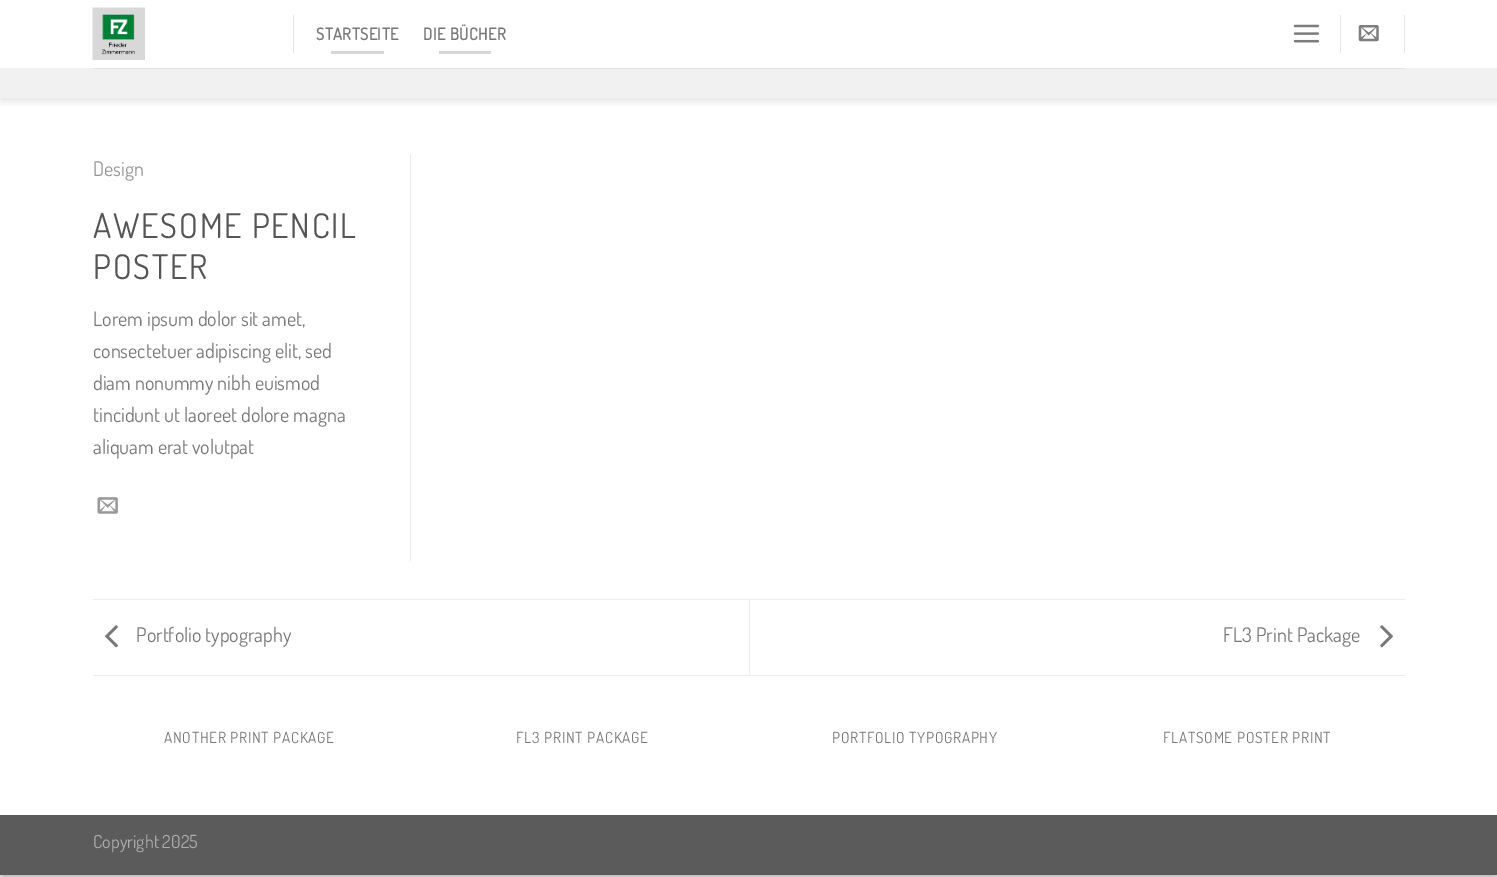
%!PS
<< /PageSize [1497 877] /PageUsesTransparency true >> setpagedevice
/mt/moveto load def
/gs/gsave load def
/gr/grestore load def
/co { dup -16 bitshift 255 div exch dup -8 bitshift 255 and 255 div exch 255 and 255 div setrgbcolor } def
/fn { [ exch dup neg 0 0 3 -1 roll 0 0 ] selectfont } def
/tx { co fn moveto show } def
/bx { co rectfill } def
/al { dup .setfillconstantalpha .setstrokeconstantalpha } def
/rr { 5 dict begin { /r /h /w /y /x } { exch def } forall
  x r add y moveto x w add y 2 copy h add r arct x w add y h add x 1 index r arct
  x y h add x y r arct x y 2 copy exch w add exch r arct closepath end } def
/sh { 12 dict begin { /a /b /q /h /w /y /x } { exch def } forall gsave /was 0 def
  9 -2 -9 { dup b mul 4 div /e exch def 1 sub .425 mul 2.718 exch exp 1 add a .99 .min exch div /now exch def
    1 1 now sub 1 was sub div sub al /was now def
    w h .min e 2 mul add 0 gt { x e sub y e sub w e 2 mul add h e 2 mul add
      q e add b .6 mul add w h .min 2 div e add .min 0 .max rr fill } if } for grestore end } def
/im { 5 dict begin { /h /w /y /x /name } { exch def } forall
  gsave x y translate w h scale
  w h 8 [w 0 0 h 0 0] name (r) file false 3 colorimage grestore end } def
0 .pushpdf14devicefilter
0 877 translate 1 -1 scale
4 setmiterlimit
0 0 1497 877 16#F9FAF9 bx
16#000000 co
0 4 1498 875 0 4 .23 sh
5 9 1488 865 0 4 .16 sh
0 0 1497 815 16#FFFFFF bx
gs
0 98 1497 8 rectclip
16#000000 co
1 1 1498 98 0 6 .15 sh
gr
(media/1.raw) 92 7 53 53 im
293 15 1 38 16#E6E6E6 bx
331 51 53 3 16#D6D6D6 bx
439 51 52 3 16#D6D6D6 bx
(media/2.raw) 1293 24 27 19 im
1340 15 1 38 16#E6E6E6 bx
(media/3.raw) 1358 25 21 17 im
1404 15 1 38 16#E6E6E6 bx
0 68 1497 30 16#F1F1F1 bx
93 68 1312 1 16#E5E5E5 bx
410 154 1 407 16#ECECEC bx
(media/4.raw) 97 497 21 17 im
93 599 1312 1 16#ECECEC bx
93 675 1312 1 16#ECECEC bx
(media/5.raw) 105 625 13 23 im
749 600 1 75 16#ECECEC bx
(media/6.raw) 1380 625 13 23 im
0 815 1497 60 16#5B5B5B bx
/Dosis-Bold 16.5 fn
16#777777 co
316 40 mt .5 0 (STARTSEITE) ashow
423 40 mt .5 0 (DIE BÜCHER) ashow
(Design) 93 176 /Dosis-Regular 20 16#949494 tx
/Dosis-Regular 34 fn
16#555555 co
93 238 mt 1.75 0 (AWESOME PENCIL) ashow
93 279 mt 1.75 0 (POSTER) ashow
(Lorem ipsum dolor sit amet,) 93 326 /Dosis-Regular 20 16#777777 tx
(consectetuer adipiscing elit, sed) 93 358 /Dosis-Regular 20 16#777777 tx
(diam nonummy nibh euismod) 93 390 /Dosis-Regular 20 16#777777 tx
(tincidunt ut laoreet dolore magna) 93 422 /Dosis-Regular 20 16#777777 tx
(aliquam erat volutpat) 93 454 /Dosis-Regular 20 16#777777 tx
(Portfolio typography) 136 642 /Dosis-Regular 20 16#777777 tx
(FL3 Print Package) 1223 642 /Dosis-Regular 20 16#777777 tx
/Dosis-Regular 15.25 fn
164 743 mt .75 0 (ANOTHER PRINT PACKAGE) ashow
516 743 mt .75 0 (FL3 PRINT PACKAGE) ashow
832 743 mt .75 0 (PORTFOLIO TYPOGRAPHY) ashow
1163 743 mt .75 0 (FLATSOME POSTER PRINT) ashow
(Copyright 2025) 93 848 /Dosis-Regular 18 16#ADADAD tx
.poppdf14devicefilter showpage
